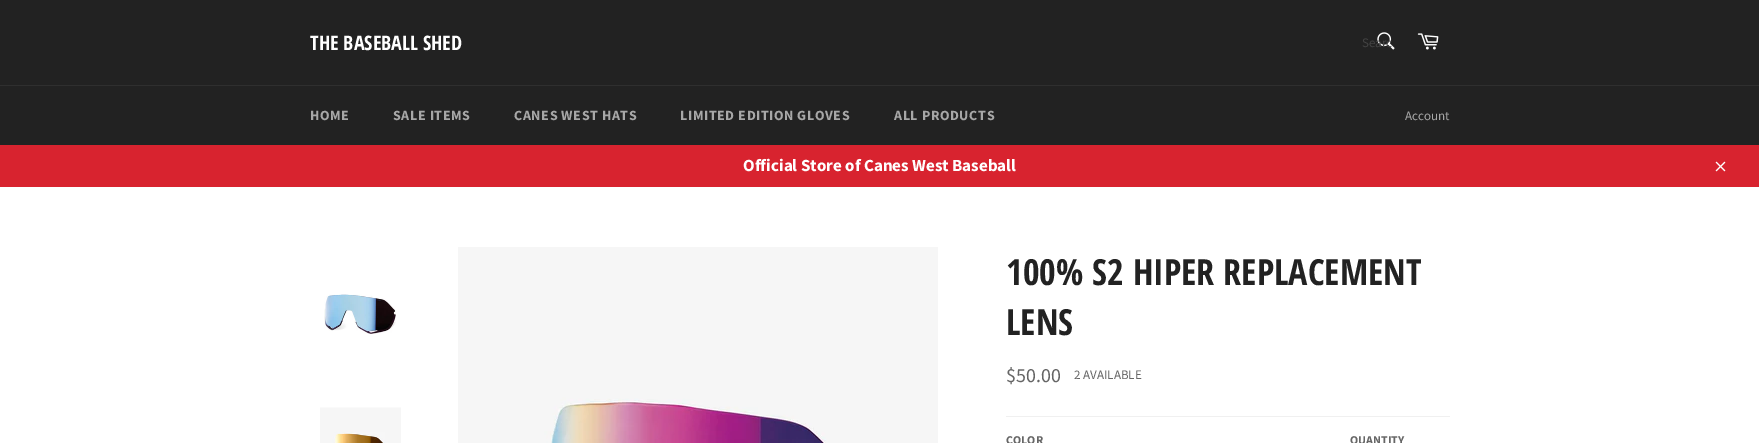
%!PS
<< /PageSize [1759 443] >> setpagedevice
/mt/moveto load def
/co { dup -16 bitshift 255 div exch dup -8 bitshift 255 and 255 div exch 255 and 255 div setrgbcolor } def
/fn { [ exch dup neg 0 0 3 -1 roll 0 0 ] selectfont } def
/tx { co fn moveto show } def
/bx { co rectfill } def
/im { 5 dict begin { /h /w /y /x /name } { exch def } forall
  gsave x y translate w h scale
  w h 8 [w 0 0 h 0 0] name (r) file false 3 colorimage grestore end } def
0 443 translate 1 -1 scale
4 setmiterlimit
0 0 1759 443 16#222222 bx
(media/1.raw) 1377 32 18 18 im
(media/2.raw) 1417 33 22 17 im
0 85 1759 1 16#2F2F2F bx
0 145 1759 42 16#D8232F bx
(media/3.raw) 1715 161 11 11 im
0 187 1759 256 16#FFFFFF bx
(media/4.raw) 324 294 72 40 im
(media/5.raw) 320 407 81 36 im
(media/6.raw) 458 247 480 196 im
1006 416 444 1 16#F0F0F0 bx
(THE BASEBALL SHED) 310 50 /OpenSansCondensed-Bold 20 16#FFFFFF tx
(Searc) 1362 47 /SourceSansPro-Regular 13 16#434343 tx
/SourceSansPro-Bold 14 fn
16#A7A7A7 co
310 120 mt .6 0 (HOME) ashow
393 120 mt .6 0 (SALE ITEMS) ashow
514 120 mt .6 0 (CANES WEST HATS) ashow
680 120 mt .6 0 (LIMITED EDITION GLOVES) ashow
894 120 mt .6 0 (ALL PRODUCTS) ashow
(Account) 1405 120 /SourceSansPro-Regular 13 16#A7A7A7 tx
(Official Store of Canes West Baseball) 743 171 /SourceSansPro-Bold 17 16#FFFFFF tx
(100% S2 HIPER REPLACEMENT) 1006 285 /OpenSansCondensed-Bold 36 16#222222 tx
(LENS) 1006 335 /OpenSansCondensed-Bold 36 16#222222 tx
($50.00) 1006 382 /SourceSansPro-Regular 20 16#666666 tx
(2 AVAILABLE) 1074 379 /SourceSansPro-Regular 13 16#666666 tx
(COLOR) 1006 444 /SourceSansPro-Bold 12 16#666666 tx
(QUANTITY) 1350 444 /SourceSansPro-Bold 12 16#666666 tx
showpage
